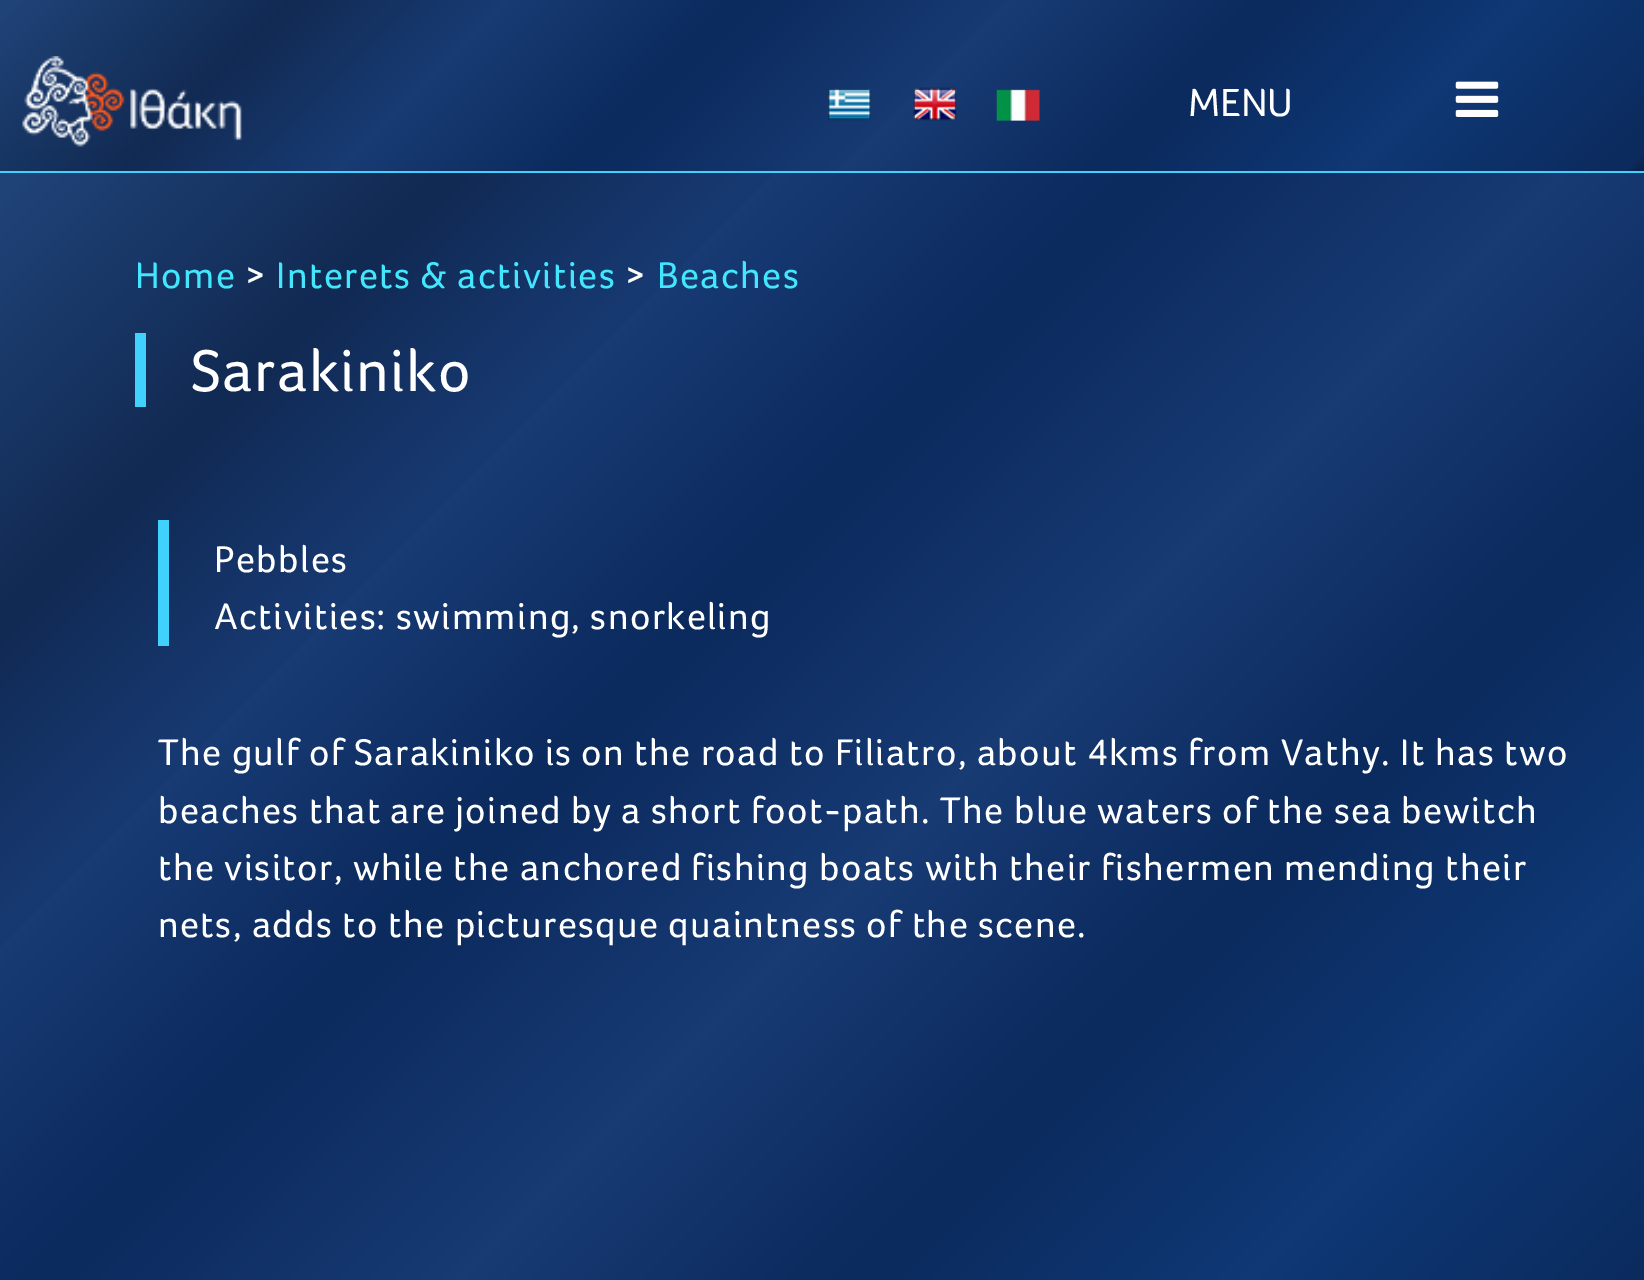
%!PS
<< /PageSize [1644 1280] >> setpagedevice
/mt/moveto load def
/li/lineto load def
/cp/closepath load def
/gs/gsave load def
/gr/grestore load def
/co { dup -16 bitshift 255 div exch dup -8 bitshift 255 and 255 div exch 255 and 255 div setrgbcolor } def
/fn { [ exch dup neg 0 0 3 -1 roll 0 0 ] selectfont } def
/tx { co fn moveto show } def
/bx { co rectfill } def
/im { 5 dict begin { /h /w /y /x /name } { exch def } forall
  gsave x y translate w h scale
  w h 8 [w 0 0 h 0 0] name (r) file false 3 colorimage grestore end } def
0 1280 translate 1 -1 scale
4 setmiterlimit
0 0 1644 1280 16#FFFFFF bx
gs 0 0 mt 1644 0 li 1644 171 li 0 171 li cp clip newpath
<< /ShadingType 2 /ColorSpace /DeviceRGB /Coords [368 -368 1276 539] /Extend [true true] /Function << /FunctionType 3 /Domain [0 1] /Functions [<< /FunctionType 2 /Domain [0 1] /C0 [.122 .259 .467] /C1 [.122 .259 .467] /N 1 >> << /FunctionType 2 /Domain [0 1] /C0 [.122 .259 .467] /C1 [.067 .165 .325] /N 1 >> << /FunctionType 2 /Domain [0 1] /C0 [.067 .165 .325] /C1 [.094 .231 .455] /N 1 >> << /FunctionType 2 /Domain [0 1] /C0 [.094 .231 .455] /C1 [.043 .165 .365] /N 1 >> << /FunctionType 2 /Domain [0 1] /C0 [.043 .165 .365] /C1 [.094 .231 .455] /N 1 >> << /FunctionType 2 /Domain [0 1] /C0 [.094 .231 .455] /C1 [.043 .165 .365] /N 1 >> << /FunctionType 2 /Domain [0 1] /C0 [.043 .165 .365] /C1 [.059 .22 .459] /N 1 >> << /FunctionType 2 /Domain [0 1] /C0 [.059 .22 .459] /C1 [.043 .165 .365] /N 1 >> << /FunctionType 2 /Domain [0 1] /C0 [.043 .165 .365] /C1 [.035 .122 .263] /N 1 >>] /Bounds [.01 .16 .28 .41 .56 .7 .84 .99] /Encode [0 1 0 1 0 1 0 1 0 1 0 1 0 1 0 1 0 1] >> >> shfill gr
0 171 1644 2 16#41D1FD bx
(media/1.raw) 22 56 220 91 im
(media/2.raw) 828 88 43 33 im
(media/3.raw) 913 87 44 34 im
(media/4.raw) 996 89 44 32 im
(media/5.raw) 1455 81 44 36 im
gs 0 173 mt 1644 173 li 1644 1280 li 0 1280 li cp clip newpath
<< /ShadingType 2 /ColorSpace /DeviceRGB /Coords [123 51 1522 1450] /Extend [true true] /Function << /FunctionType 3 /Domain [0 1] /Functions [<< /FunctionType 2 /Domain [0 1] /C0 [.122 .259 .467] /C1 [.122 .259 .467] /N 1 >> << /FunctionType 2 /Domain [0 1] /C0 [.122 .259 .467] /C1 [.067 .165 .325] /N 1 >> << /FunctionType 2 /Domain [0 1] /C0 [.067 .165 .325] /C1 [.094 .231 .455] /N 1 >> << /FunctionType 2 /Domain [0 1] /C0 [.094 .231 .455] /C1 [.043 .165 .365] /N 1 >> << /FunctionType 2 /Domain [0 1] /C0 [.043 .165 .365] /C1 [.094 .231 .455] /N 1 >> << /FunctionType 2 /Domain [0 1] /C0 [.094 .231 .455] /C1 [.043 .165 .365] /N 1 >> << /FunctionType 2 /Domain [0 1] /C0 [.043 .165 .365] /C1 [.059 .22 .459] /N 1 >> << /FunctionType 2 /Domain [0 1] /C0 [.059 .22 .459] /C1 [.043 .165 .365] /N 1 >> << /FunctionType 2 /Domain [0 1] /C0 [.043 .165 .365] /C1 [.035 .122 .263] /N 1 >>] /Bounds [.01 .16 .28 .41 .56 .7 .84 .99] /Encode [0 1 0 1 0 1 0 1 0 1 0 1 0 1 0 1 0 1] >> >> shfill gr
135 333 11 74 16#41D1FD bx
158 520 11 126 16#41D1FD bx
(ΜΕΝU) 1188 116 /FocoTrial-Regular 40.5 16#FFFFFF tx
/FocoTrial-Regular 38.25 fn
16#42E7FD co
135 288 mt 1.35 0 (Home) ashow
16#FFFFFF co
245 288 mt 1.35 0 (>) ashow
16#42E7FD co
276 288 mt 1.35 0 (Interets & activities) ashow
16#FFFFFF co
625 288 mt 1.35 0 (>) ashow
16#42E7FD co
657 288 mt 1.35 0 (Beaches) ashow
/FocoTrial-Regular 60.75 fn
16#FFFFFF co
191 391 mt 1.35 0 (Sarakiniko) ashow
/FocoTrial-Regular 38.25 fn
214 572 mt 1.35 0 (Pebbles) ashow
214 629 mt 1.35 0 (Activities: swimming, snorkeling) ashow
158 765 mt 1.35 0 (The gulf of Sarakiniko is on the road to Filiatro, about 4kms from Vathy. It has two) ashow
158 823 mt 1.35 0 (beaches that are joined by a short foot-path. The blue waters of the sea bewitch) ashow
158 880 mt 1.35 0 (the visitor, while the anchored fishing boats with their fishermen mending their) ashow
158 937 mt 1.35 0 (nets, adds to the picturesque quaintness of the scene.) ashow
showpage
